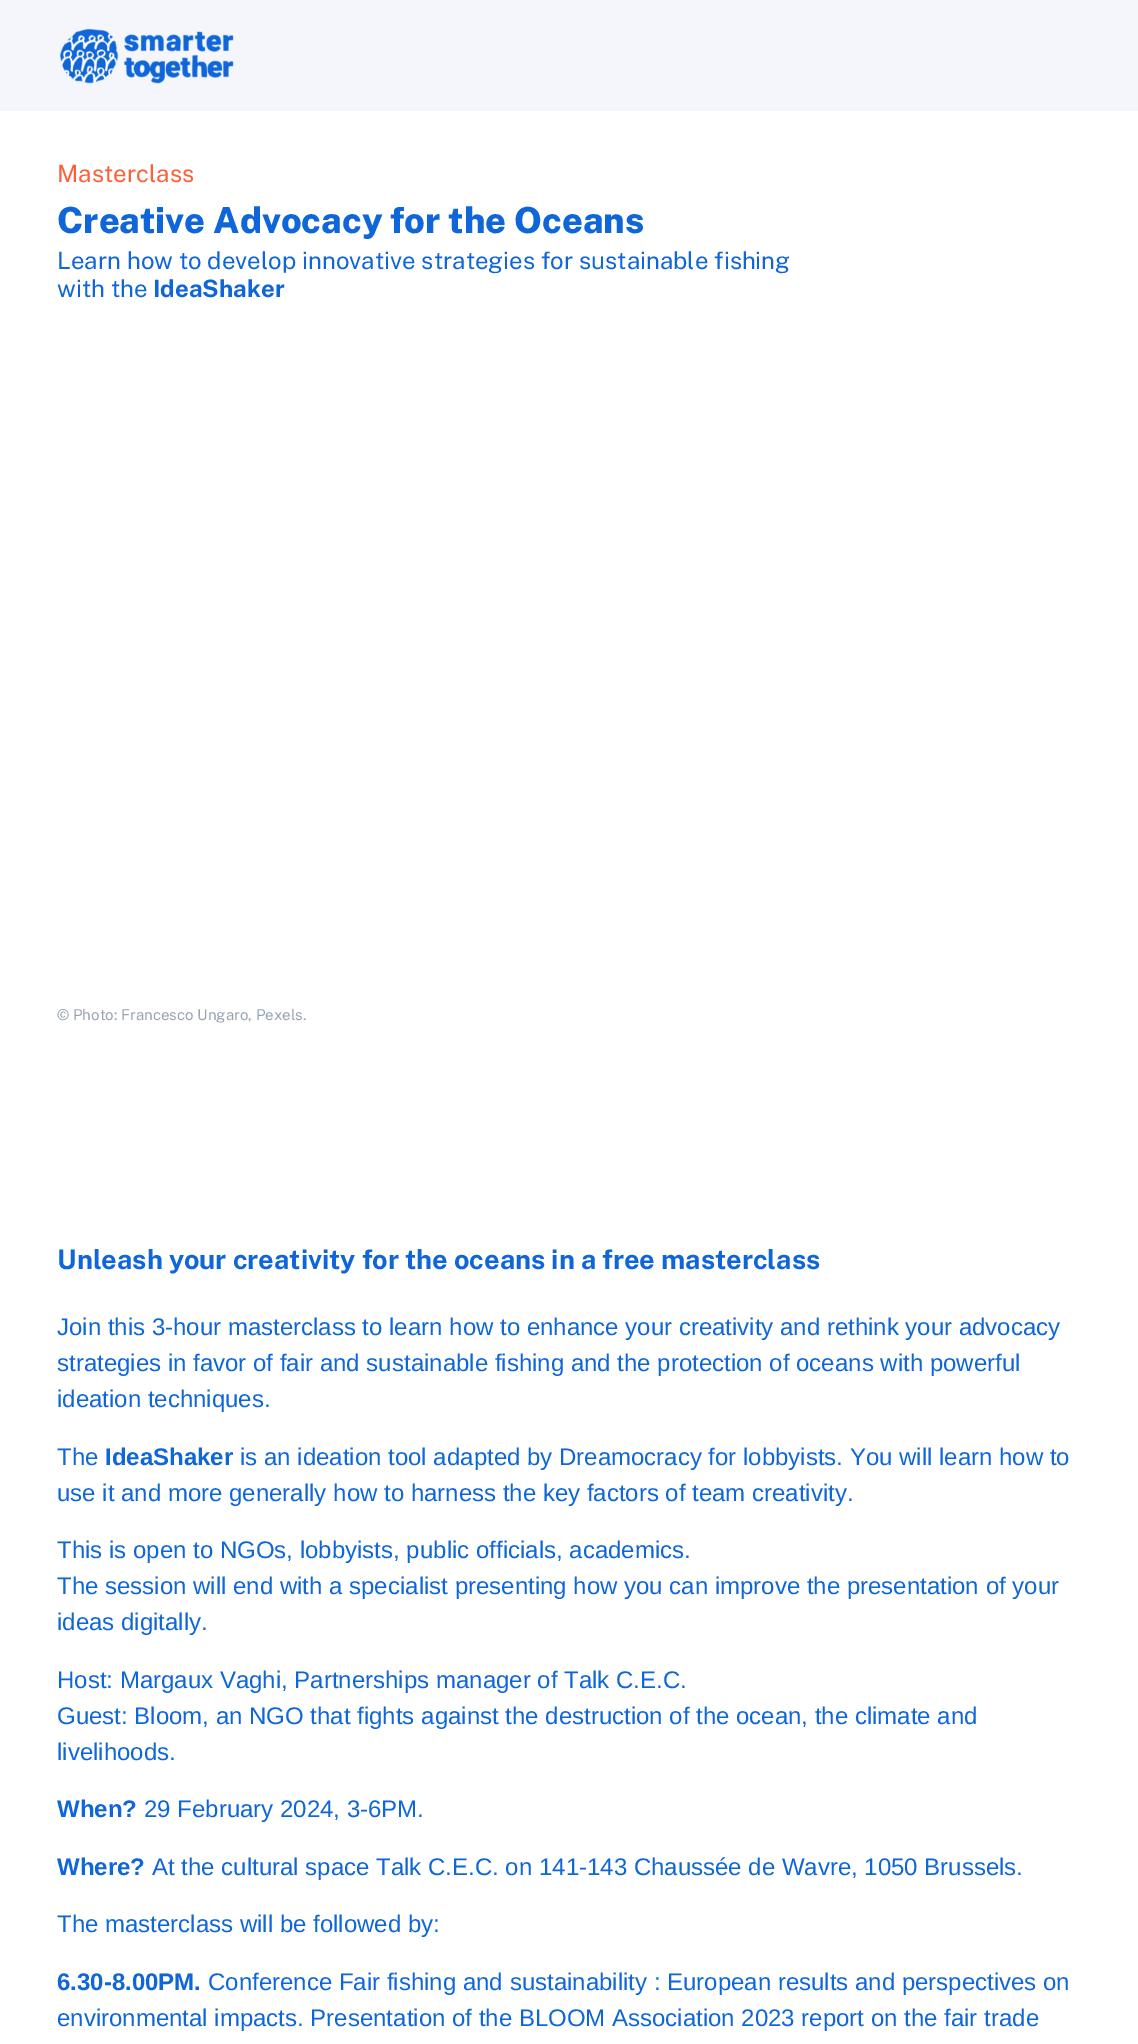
%!PS
<< /PageSize [1138 2044] >> setpagedevice
/co { dup -16 bitshift 255 div exch dup -8 bitshift 255 and 255 div exch 255 and 255 div setrgbcolor } def
/fn { [ exch dup neg 0 0 3 -1 roll 0 0 ] selectfont } def
/tx { co fn moveto show } def
/bx { co rectfill } def
/im { 5 dict begin { /h /w /y /x /name } { exch def } forall
  gsave x y translate w h scale
  w h 8 [w 0 0 h 0 0] name (r) file false 3 colorimage grestore end } def
0 2044 translate 1 -1 scale
4 setmiterlimit
0 0 1138 2044 16#FFFFFF bx
0 0 1138 111 16#F4F6FC bx
(media/1.raw) 59 28 175 56 im
(Masterclass) 57 182 /PublicSans-Regular 24 16#FF5E37 tx
(Creative Advocacy for the Oceans) 57 233 /PublicSans-ExtraBold 36 16#0E66D8 tx
(Learn how to develop innovative strategies for sustainable fishing) 57 269 /PublicSans-Regular 24 16#0E66D8 tx
(with the) 57 297 /PublicSans-Regular 24 16#0E66D8 tx
(IdeaShaker) 153 297 /PublicSans-Bold 24 16#0E66D8 tx
(© Photo: Francesco Ungaro, Pexels.) 57 1020 /PublicSans-Regular 15 16#96A3B3 tx
(Unleash your creativity for the oceans in a free masterclass) 57 1269 /PublicSans-Bold 27 16#0E66D8 tx
(Join this 3-hour masterclass to learn how to enhance your creativity and rethink your advocacy) 57 1335 /LiberationSans-Regular 24 16#0E66D8 tx
(strategies in favor of fair and sustainable fishing and the protection of oceans with powerful) 57 1371 /LiberationSans-Regular 24 16#0E66D8 tx
(ideation techniques.) 57 1407 /LiberationSans-Regular 24 16#0E66D8 tx
(The) 57 1465 /LiberationSans-Regular 24 16#0E66D8 tx
(IdeaShaker) 105 1465 /LiberationSans-Bold 24 16#0E66D8 tx
(is an ideation tool adapted by Dreamocracy for lobbyists. You will learn how to) 240 1465 /LiberationSans-Regular 24 16#0E66D8 tx
(use it and more generally how to harness the key factors of team creativity.) 57 1501 /LiberationSans-Regular 24 16#0E66D8 tx
(This is open to NGOs, lobbyists, public officials, academics.) 57 1558 /LiberationSans-Regular 24 16#0E66D8 tx
(The session will end with a specialist presenting how you can improve the presentation of your) 57 1594 /LiberationSans-Regular 24 16#0E66D8 tx
(ideas digitally.) 57 1630 /LiberationSans-Regular 24 16#0E66D8 tx
(Host: Margaux Vaghi, Partnerships manager of Talk C.E.C.) 57 1688 /LiberationSans-Regular 24 16#0E66D8 tx
(Guest: Bloom, an NGO that fights against the destruction of the ocean, the climate and) 57 1724 /LiberationSans-Regular 24 16#0E66D8 tx
(livelihoods.) 57 1760 /LiberationSans-Regular 24 16#0E66D8 tx
(When?) 57 1817 /LiberationSans-Bold 24 16#0E66D8 tx
(29 February 2024, 3-6PM.) 144 1817 /LiberationSans-Regular 24 16#0E66D8 tx
(Where?) 57 1875 /LiberationSans-Bold 24 16#0E66D8 tx
(At the cultural space Talk C.E.C. on 141-143 Chaussée de Wavre, 1050 Brussels.) 152 1875 /LiberationSans-Regular 24 16#0E66D8 tx
(The masterclass will be followed by:) 57 1932 /LiberationSans-Regular 24 16#0E66D8 tx
(6.30-8.00PM.) 57 1990 /LiberationSans-Bold 24 16#0E66D8 tx
(Conference Fair fishing and sustainability : European results and perspectives on) 208 1990 /LiberationSans-Regular 24 16#0E66D8 tx
(environmental impacts. Presentation of the BLOOM Association 2023 report on the fair trade) 57 2026 /LiberationSans-Regular 24 16#0E66D8 tx
showpage
